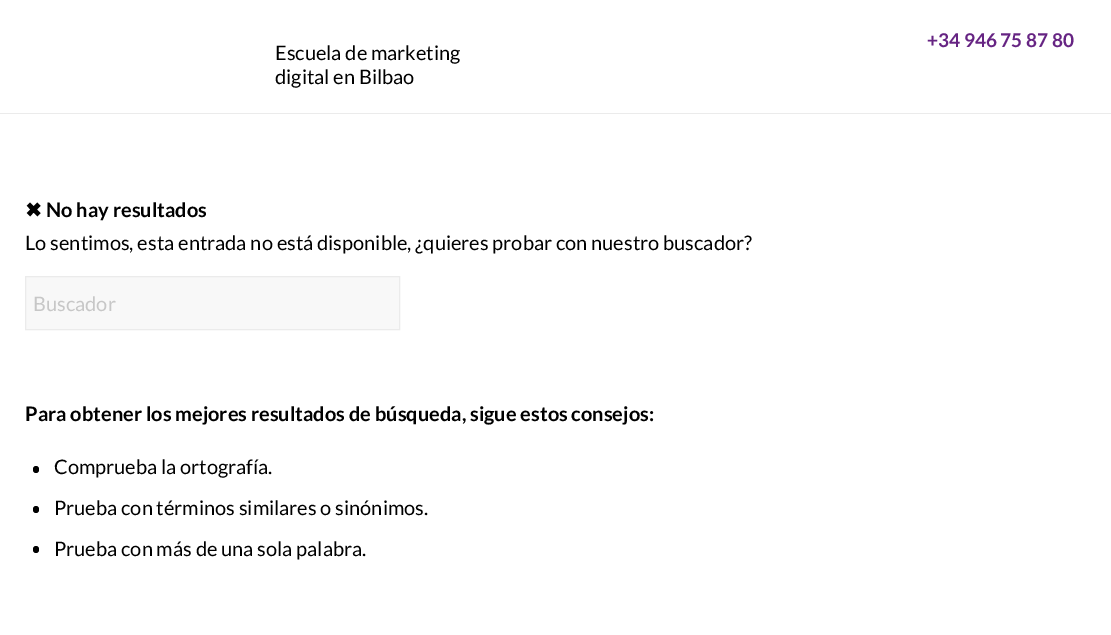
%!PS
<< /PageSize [1111 635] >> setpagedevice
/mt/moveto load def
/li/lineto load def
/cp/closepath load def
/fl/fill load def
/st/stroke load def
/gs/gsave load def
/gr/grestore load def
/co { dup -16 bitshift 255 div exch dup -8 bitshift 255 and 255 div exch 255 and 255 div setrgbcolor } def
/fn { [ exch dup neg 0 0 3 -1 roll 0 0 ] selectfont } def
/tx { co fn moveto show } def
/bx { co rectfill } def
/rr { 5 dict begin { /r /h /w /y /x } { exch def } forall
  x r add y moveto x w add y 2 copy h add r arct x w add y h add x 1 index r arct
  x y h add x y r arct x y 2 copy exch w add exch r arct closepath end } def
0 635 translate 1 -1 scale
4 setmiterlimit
0 0 1111 635 16#FFFFFF bx
0 113 1111 1 16#EBEBEB bx
16#F8F8F8 co
25.5 276.5 mt 399.5 276.5 li 399.5 329.5 li 25.5 329.5 li cp gs fl gr
16#EBEBEB co
st
16#000000 co
33 466 6 7 3 rr fl
33 506 6 7 3 rr fl
33 546 6 7 3 rr fl
(+34 946 75 87 80) 927 47 /Lato-Bold 19 16#662483 tx
(Escuela de marketing) 275 60 /Lato-Regular 20 16#000000 tx
(digital en Bilbao) 275 84 /Lato-Regular 20 16#000000 tx
(✖) 25 217 /DejaVuSans-Bold 20 16#000000 tx
(No hay resultados) 46 217 /Lato-Bold 20 16#000000 tx
(Lo sentimos, esta entrada no está disponible, ¿quieres probar con nuestro buscador?) 25 250 /Lato-Regular 20 16#000000 tx
(Buscador) 33 311 /Lato-Regular 20 16#C7C7C7 tx
(Para obtener los mejores resultados de búsqueda, sigue estos consejos:) 25 421 /Lato-Bold 20 16#000000 tx
(Comprueba la ortografía.) 54 474 /Lato-Regular 20 16#000000 tx
(Prueba con términos similares o sinónimos.) 54 515 /Lato-Regular 20 16#000000 tx
(Prueba con más de una sola palabra.) 54 556 /Lato-Regular 20 16#000000 tx
showpage
